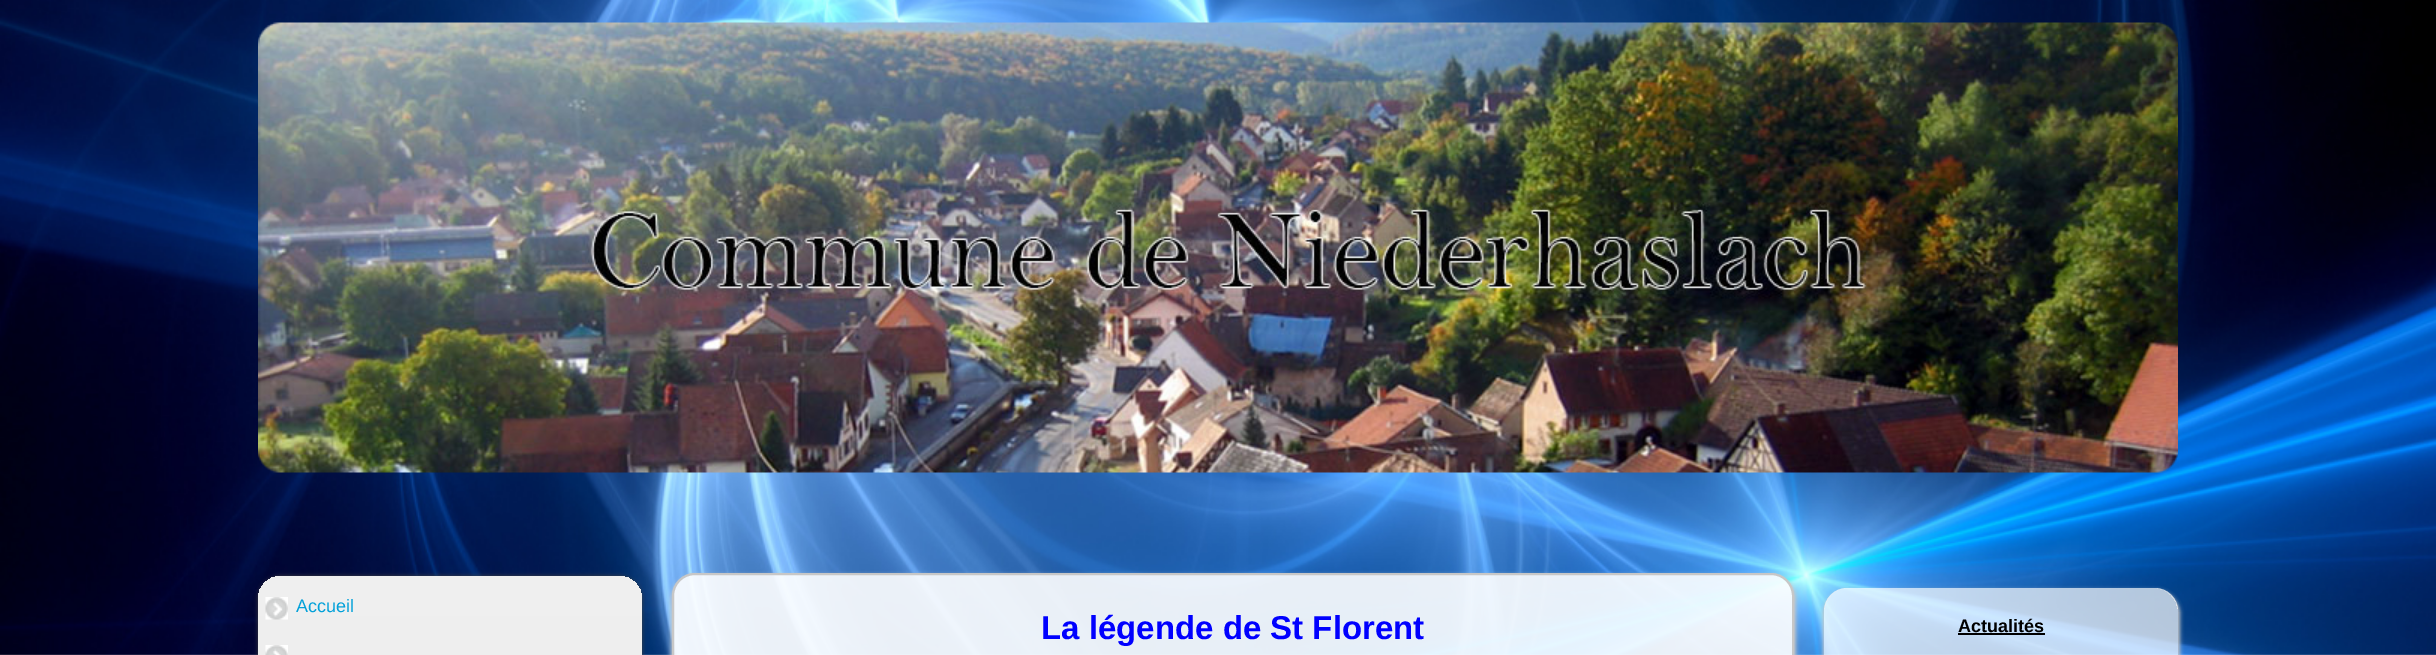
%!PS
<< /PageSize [2436 655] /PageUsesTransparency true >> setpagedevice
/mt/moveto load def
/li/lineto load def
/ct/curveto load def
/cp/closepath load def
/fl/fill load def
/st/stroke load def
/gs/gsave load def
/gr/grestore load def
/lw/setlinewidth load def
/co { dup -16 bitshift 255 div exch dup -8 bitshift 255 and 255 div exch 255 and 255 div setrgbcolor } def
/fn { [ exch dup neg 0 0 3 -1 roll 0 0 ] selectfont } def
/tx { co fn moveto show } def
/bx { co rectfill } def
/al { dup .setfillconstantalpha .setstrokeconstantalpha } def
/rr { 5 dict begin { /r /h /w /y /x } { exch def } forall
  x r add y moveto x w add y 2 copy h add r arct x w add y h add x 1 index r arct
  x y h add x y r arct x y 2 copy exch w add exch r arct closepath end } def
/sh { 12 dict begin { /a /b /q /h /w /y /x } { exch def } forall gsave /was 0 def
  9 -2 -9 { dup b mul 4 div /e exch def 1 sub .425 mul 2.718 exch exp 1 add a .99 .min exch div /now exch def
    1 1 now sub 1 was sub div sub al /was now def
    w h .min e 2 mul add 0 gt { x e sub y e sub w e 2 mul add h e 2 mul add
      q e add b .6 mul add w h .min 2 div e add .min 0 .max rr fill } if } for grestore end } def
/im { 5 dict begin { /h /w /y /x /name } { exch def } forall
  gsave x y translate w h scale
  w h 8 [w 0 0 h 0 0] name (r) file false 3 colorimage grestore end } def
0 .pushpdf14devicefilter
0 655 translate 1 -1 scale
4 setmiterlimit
0 0 2436 655 16#FFFFFF bx
(media/1.raw) 0 0 2436 655 im
(media/2.raw) 258 22 1920 451 im
16#444444 co
258 576 384 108 23 2 1 sh
gs 258 576 384 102 23 rr clip newpath
<< /ShadingType 2 /ColorSpace /DeviceRGB /Coords [450 576 450 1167] /Extend [true true] /Function << /FunctionType 2 /Domain [0 1] /C0 [.941 .941 .941] /C1 [.89 .89 .89] /N 1 >> >> shfill gr
(media/3.raw) 265 597 23 23 im
(media/4.raw) 265 645 23 10 im
gs
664 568 mt 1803 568 li 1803 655 li 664 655 li cp 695 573 mt 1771 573 li 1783.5 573 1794 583.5 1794 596 ct 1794 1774 li 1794 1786.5 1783.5 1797 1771 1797 ct 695 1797 li 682.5 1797 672 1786.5 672 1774 ct 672 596 li 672 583.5 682.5 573 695 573 ct cp eoclip newpath
16#C7C7C7 co
671 575 1125 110 24 2 1 sh
gr
0.9 al
16#FFFFFF co
673 574 1120 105 22 rr fl
1 al
16#C7C7C7 co
2 lw
673 574 1120 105 22 rr st
gs
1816 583 mt 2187 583 li 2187 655 li 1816 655 li cp 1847 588 mt 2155 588 li 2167.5 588 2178 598.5 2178 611 ct 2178 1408 li 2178 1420.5 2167.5 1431 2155 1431 ct 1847 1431 li 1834.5 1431 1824 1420.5 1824 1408 ct 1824 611 li 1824 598.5 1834.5 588 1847 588 ct cp eoclip newpath
1823 590 357 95 24 2 1 sh
gr
0.7 al
16#FFFFFF co
1824 588 354 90 23 rr fl
1 al
1958 633 87 2 16#000000 bx
(Accueil) 296 612 /LiberationSans-Regular 18 16#03A1D9 tx
(La légende de St Florent) 1041 639 /LiberationSans-Bold 33 16#0000FF tx
(Actualités) 1958 632 /LiberationSans-Bold 18 16#000000 tx
.poppdf14devicefilter showpage
